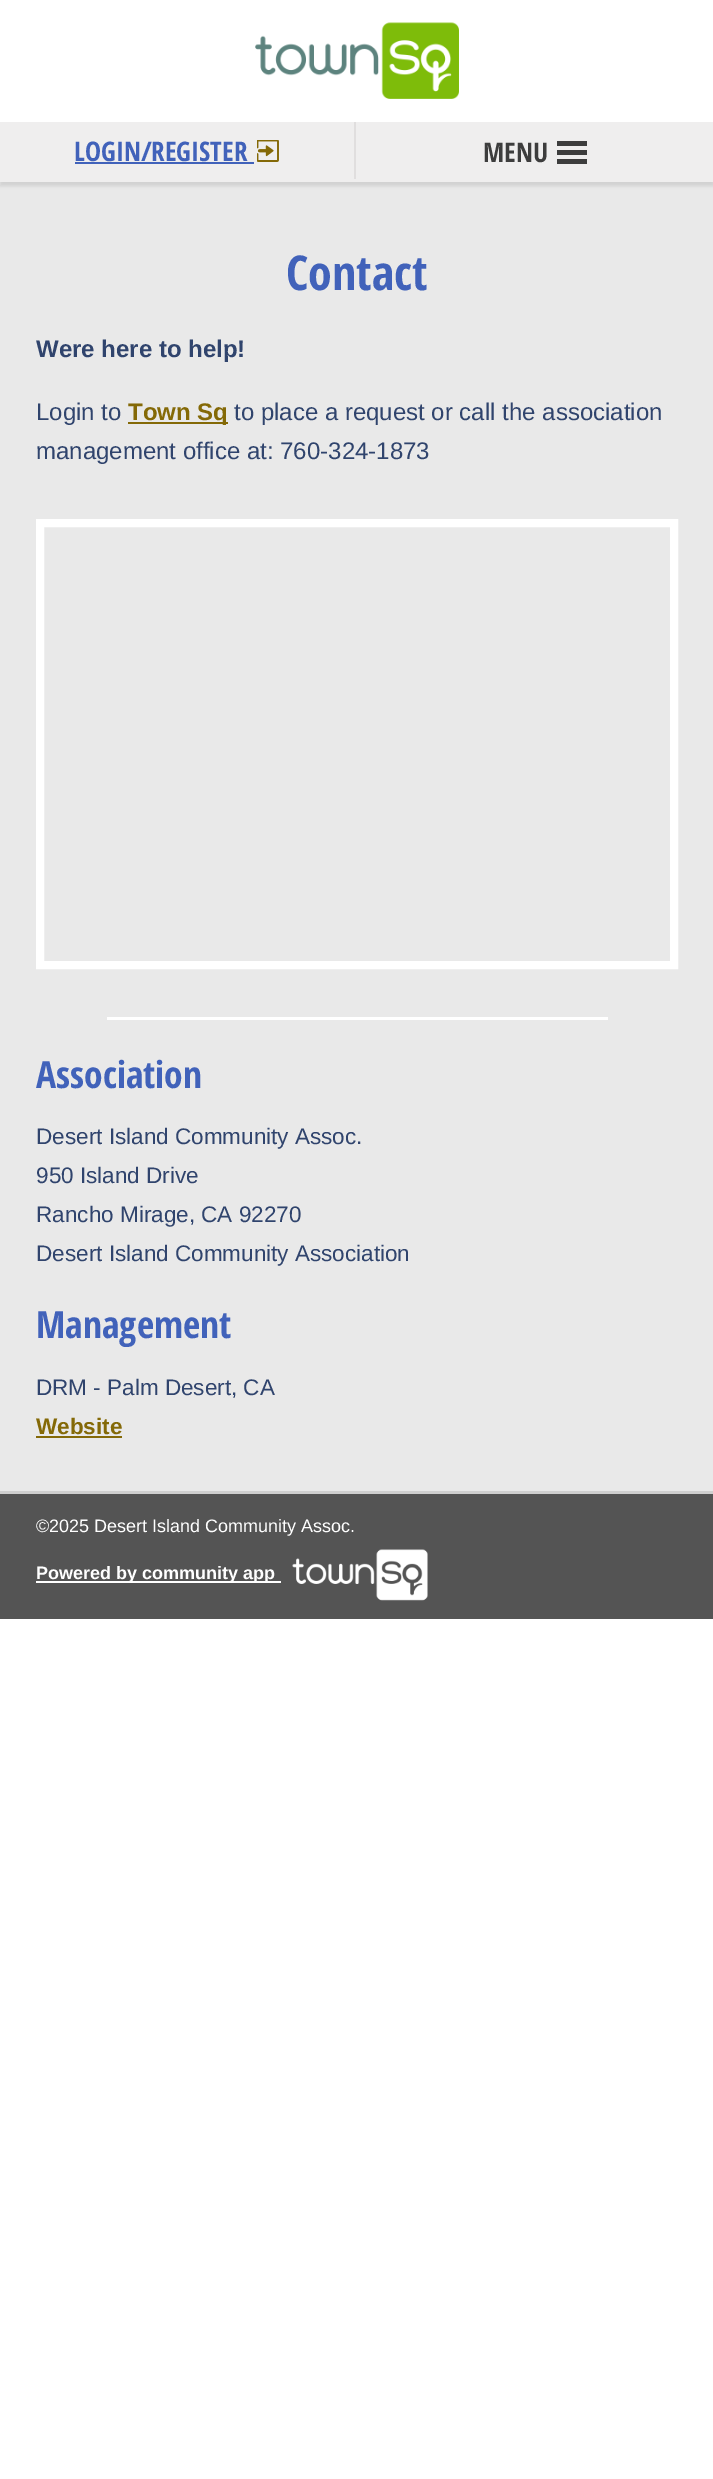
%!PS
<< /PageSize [713 2479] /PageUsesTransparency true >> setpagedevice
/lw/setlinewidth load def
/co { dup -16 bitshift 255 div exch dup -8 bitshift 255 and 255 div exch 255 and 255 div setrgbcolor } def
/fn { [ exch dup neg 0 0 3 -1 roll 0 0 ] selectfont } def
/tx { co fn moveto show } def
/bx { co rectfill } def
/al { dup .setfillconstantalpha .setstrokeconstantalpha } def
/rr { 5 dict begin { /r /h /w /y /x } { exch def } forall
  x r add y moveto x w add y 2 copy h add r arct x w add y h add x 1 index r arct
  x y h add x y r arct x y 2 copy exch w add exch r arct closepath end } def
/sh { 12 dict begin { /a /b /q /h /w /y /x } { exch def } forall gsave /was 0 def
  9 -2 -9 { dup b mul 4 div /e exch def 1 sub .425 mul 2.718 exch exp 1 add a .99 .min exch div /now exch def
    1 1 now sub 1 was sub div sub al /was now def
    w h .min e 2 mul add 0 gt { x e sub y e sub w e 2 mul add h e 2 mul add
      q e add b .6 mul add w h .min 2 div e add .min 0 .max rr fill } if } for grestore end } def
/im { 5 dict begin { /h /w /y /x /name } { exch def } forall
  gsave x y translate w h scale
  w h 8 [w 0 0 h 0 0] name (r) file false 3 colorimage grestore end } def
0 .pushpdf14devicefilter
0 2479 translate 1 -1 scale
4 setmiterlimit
0 0 713 2479 16#FFFFFF bx
(media/1.raw) 255 22 204 77 im
0 182 713 1309 16#E9E9E9 bx
16#000000 co
0 126 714 60 0 1.5 .1 sh
0 122 713 60 16#EFEEEE bx
354 122 2 57 16#E0DEDE bx
75 162 179 2 16#4162BA bx
(media/2.raw) 257 140 22 22 im
557 150 30 5 16#3D3D3D bx
557 141 30 5 16#3D3D3D bx
557 159 30 5 16#3D3D3D bx
128 422 100 2 16#846907 bx
16#FFFFFF co
8 lw
40 523 634 442 rectstroke
107 1017 501 3 16#FFFFFF bx
36 1436 86 2 16#846907 bx
0 1494 713 125 16#545454 bx
0 1491 713 3 16#CFCFCF bx
36 1581 245 2 16#FFFFFF bx
(media/3.raw) 292 1549 136 52 im
(LOGIN/REGISTER) 74 161 /OpenSansCondensed-Bold 27 16#4162BA tx
(MENU) 483 162 /OpenSansCondensed-Bold 27 16#3D3D3D tx
(Contact) 286 290 /OpenSansCondensed-Bold 48 16#4162BA tx
(Were here to help!) 36 357 /LiberationSans-Bold 24 16#30446D tx
(Login to) 36 420 /LiberationSans-Regular 24 16#30446D tx
(Town Sq) 128 420 /LiberationSans-Bold 24 16#846907 tx
(to place a request or call the association) 234 420 /LiberationSans-Regular 24 16#30446D tx
(management office at: 760-324-1873) 36 459 /LiberationSans-Regular 24 16#30446D tx
(Association) 36 1088 /OpenSansCondensed-Bold 37.5 16#4162BA tx
(Desert Island Community Assoc.) 36 1144 /LiberationSans-Regular 22.5 16#30446D tx
(950 Island Drive) 36 1183 /LiberationSans-Regular 22.5 16#30446D tx
(Rancho Mirage, CA 92270) 36 1222 /LiberationSans-Regular 22.5 16#30446D tx
(Desert Island Community Association) 36 1261 /LiberationSans-Regular 22.5 16#30446D tx
(Management) 36 1338 /OpenSansCondensed-Bold 37.5 16#4162BA tx
(DRM - Palm Desert, CA) 36 1395 /LiberationSans-Regular 22.5 16#30446D tx
(Website) 36 1434 /LiberationSans-Bold 22.5 16#846907 tx
(©2025 Desert Island Community Assoc.) 36 1532 /LiberationSans-Regular 18 16#FFFFFF tx
(Powered by community app) 36 1579 /LiberationSans-Bold 18 16#FFFFFF tx
.poppdf14devicefilter showpage
